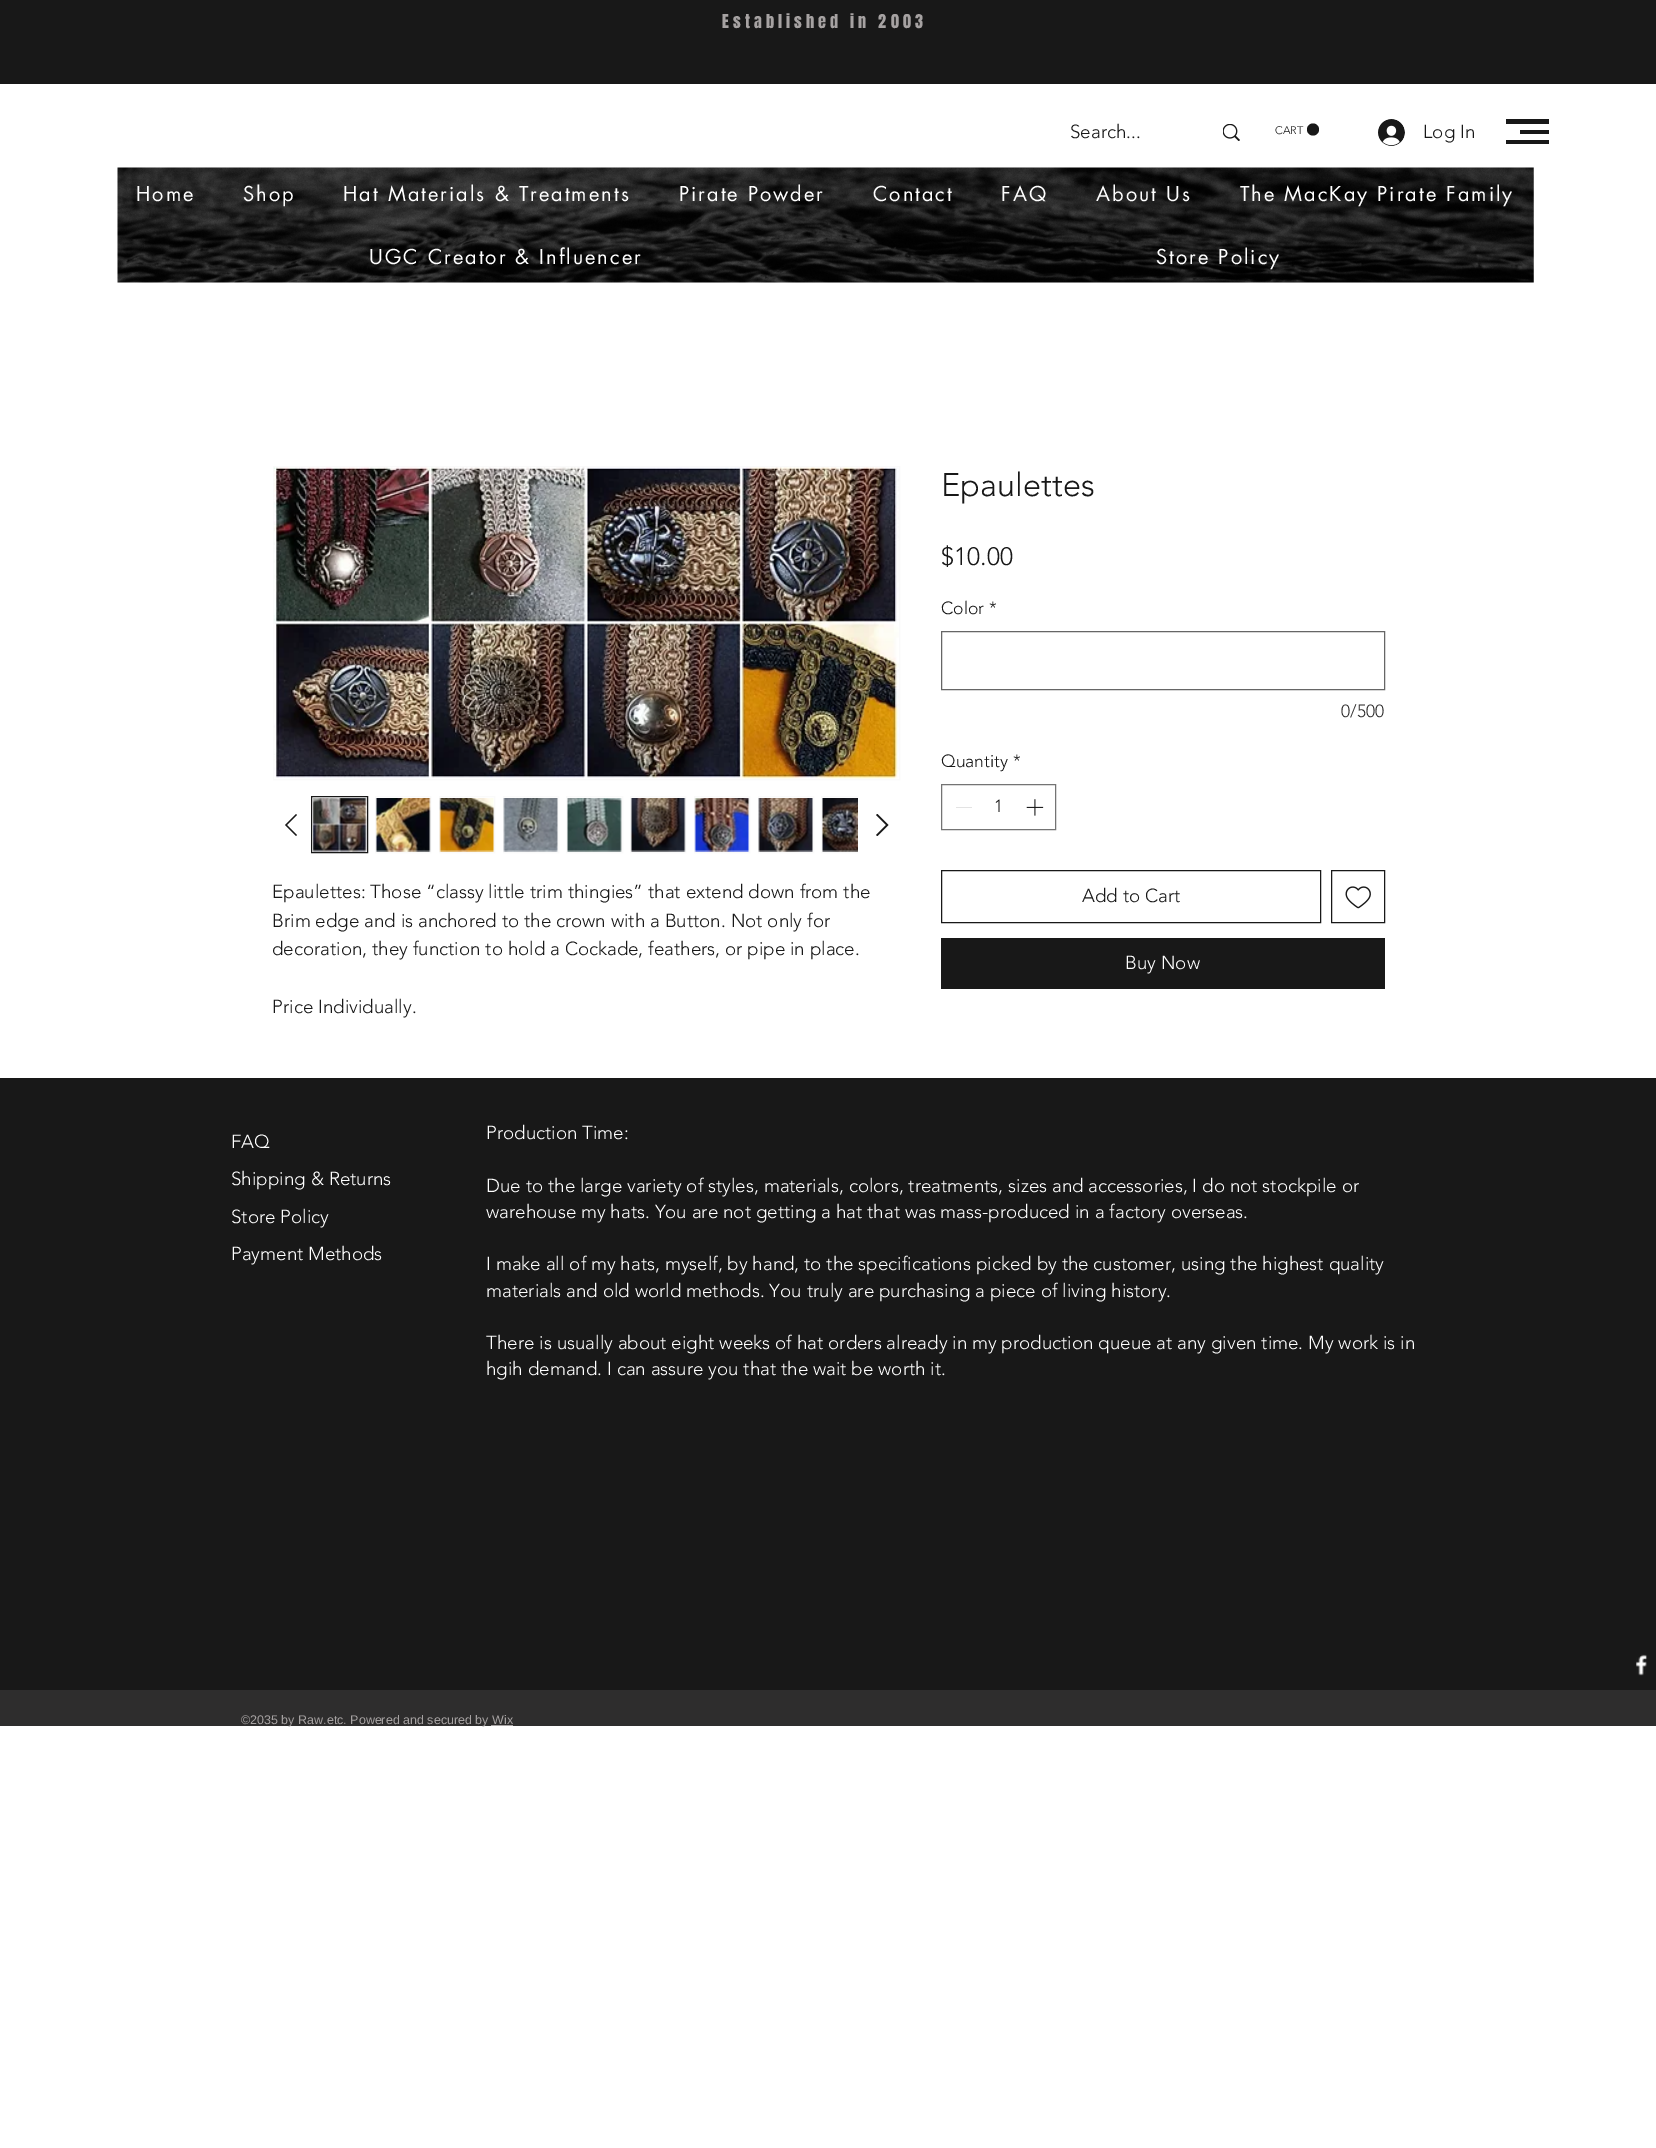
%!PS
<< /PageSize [1656 2148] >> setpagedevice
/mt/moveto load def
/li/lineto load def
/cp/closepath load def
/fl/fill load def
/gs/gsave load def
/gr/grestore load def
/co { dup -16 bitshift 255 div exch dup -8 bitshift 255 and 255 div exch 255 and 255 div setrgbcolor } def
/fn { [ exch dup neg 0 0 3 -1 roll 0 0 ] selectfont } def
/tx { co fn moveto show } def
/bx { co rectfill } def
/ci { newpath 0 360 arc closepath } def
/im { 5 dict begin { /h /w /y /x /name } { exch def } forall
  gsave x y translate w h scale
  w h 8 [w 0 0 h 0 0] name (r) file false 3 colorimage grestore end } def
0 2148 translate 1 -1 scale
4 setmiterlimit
0 0 1656 2148 16#FFFFFF bx
0 0 1656 84 16#181818 bx
(media/1.raw) 1223 124 17 17 im
1313 129.5 6 ci fl
(media/2.raw) 1378 119 27 27 im
1506 119 43 5 16#181818 bx
1520 130 29 4 16#181818 bx
1506 140 43 4 16#181818 bx
(media/3.raw) 117 167 1417 116 im
16#FAFAFA co
273.5 466.5 626 313 rectstroke
(media/4.raw) 273 467 626 312 im
16#181818 co
296 814 mt 297 815 li 287 825 li 297 835 li 296 836 li 285 825 li cp eofill
311.5 796.5 56 56 rectstroke
(media/5.raw) 313 798 54 54 im
16#FAFAFA co
375.5 796.5 55 56 rectstroke
(media/6.raw) 375 798 56 54 im
439.5 796.5 55 56 rectstroke
(media/7.raw) 439 798 56 54 im
503.5 796.5 55 56 rectstroke
(media/8.raw) 503 798 55 54 im
566.5 796.5 56 56 rectstroke
(media/9.raw) 567 798 55 54 im
630.5 796.5 55 56 rectstroke
(media/10.raw) 630 798 56 54 im
694.5 796.5 55 56 rectstroke
(media/11.raw) 694 798 56 54 im
758.5 796.5 55 56 rectstroke
(media/12.raw) 758 798 55 54 im
16#181818 co
877.5 814 mt 888.5 825 li 877.5 836 li 876 835 li 886 825 li 876 815 li cp eofill
gs
306 791 552 67 rectclip
16#FAFAFA co
821.5 796.5 56 56 rectstroke
gr
(media/13.raw) 822 798 36 54 im
16#666666 co
941.5 631.5 443 58 rectstroke
16#747474 co
941.5 784.5 114 45 rectstroke
956 807 16 1 16#E3E3E3 bx
(media/14.raw) 1026 799 18 17 im
16#181818 co
941.5 870.5 379 52 rectstroke
1331.5 870.5 53 52 rectstroke
(media/15.raw) 1345 886 26 23 im
941 938 444 51 16#181818 bx
0 1078 1656 612 16#181818 bx
(media/16.raw) 1636 1654 11 22 im
0 1690 1656 36 16#2E2D2D bx
491 1725 22 1 16#A6A2A2 bx
/Anton-Regular 16.25 fn
722 28 mt 4.1 0 (Established in 2003) ashow
(Search...) 1070 138 /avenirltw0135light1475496-Light 18.75 16#181818 tx
(CART) 1275 134 /avenirltw0135light1475496-Light 11 16#181818 tx
(Log In) 1423 138 /avenirltw0135light1475496-Light 18.75 16#181818 tx
/futura-Regular 20 fn
16#FFFFFF co
136 201 mt 2 0 (Home) ashow
243 201 mt 2 0 (Shop) ashow
343 201 mt 2 0 (Hat Materials & Treatments) ashow
679 201 mt 2 0 (Pirate Powder) ashow
873 201 mt 2 0 (Contact) ashow
1001 201 mt 2 0 (FAQ) ashow
1096 201 mt 2 0 (About Us) ashow
1240 201 mt 2 0 (The MacKay Pirate Family) ashow
369 264 mt 2 0 (UGC Creator & Influencer) ashow
1156 264 mt 2 0 (Store Policy) ashow
(Epaulettes: Those “classy little trim thingies” that extend down from the) 272 898 /avenirltw0135light1475496-Light 18.75 16#181818 tx
(Brim edge and is anchored to the crown with a Button. Not only for) 272 927 /avenirltw0135light1475496-Light 18.75 16#181818 tx
(decoration, they function to hold a Cockade, feathers, or pipe in place.) 272 955 /avenirltw0135light1475496-Light 18.75 16#181818 tx
(Price Individually.) 272 1013 /avenirltw0135light1475496-Light 18.75 16#181818 tx
(Epaulettes) 941 496 /avenirltw0135light1475496-Light 32.5 16#181818 tx
($10.00) 941 565 /avenirltw0135light1475496-Light 25 16#181818 tx
(Color) 941 614 /avenirltw0135light1475496-Light 17.5 16#181818 tx
(*) 989 614 /avenirltw0135light1475496-Light 17.5 16#181818 tx
(0/500) 1341 717 /avenirltw0135light1475496-Light 17.5 16#2E2D2D tx
(Quantity) 941 767 /avenirltw0135light1475496-Light 17.5 16#181818 tx
(*) 1013 767 /avenirltw0135light1475496-Light 17.5 16#181818 tx
(1) 994 812 /avenirltw0135light1475496-Light 17.5 16#181818 tx
(Add to Cart) 1082 902 /avenirltw0135light1475496-Light 18.75 16#181818 tx
(Buy Now) 1125 969 /avenirltw0135light1475496-Light 18.75 16#FFFFFF tx
(FAQ) 231 1148 /avenirltw0135light1475496-Light 18.75 16#FFFFFF tx
(Shipping & Returns) 231 1185 /avenirltw0135light1475496-Light 18.75 16#FFFFFF tx
(Store Policy) 231 1223 /avenirltw0135light1475496-Light 18.75 16#FFFFFF tx
(Payment Methods) 231 1260 /avenirltw0135light1475496-Light 18.75 16#FFFFFF tx
(Production Time:) 486 1139 /avenirltw0135light1475496-Light 18.75 16#FFFFFF tx
(Due to the large variety of styles, materials, colors, treatments, sizes and accessories, I do not stockpile or) 486 1192 /avenirltw0135light1475496-Light 18.75 16#FFFFFF tx
(warehouse my hats. You are not getting a hat that was mass-produced in a factory overseas.) 486 1218 /avenirltw0135light1475496-Light 18.75 16#FFFFFF tx
(I make all of my hats, myself, by hand, to the specifications picked by the customer, using the highest quality) 486 1270 /avenirltw0135light1475496-Light 18.75 16#FFFFFF tx
(materials and old world methods. You truly are purchasing a piece of living history.) 486 1297 /avenirltw0135light1475496-Light 18.75 16#FFFFFF tx
(There is usually about eight weeks of hat orders already in my production queue at any given time. My work is in) 486 1349 /avenirltw0135light1475496-Light 18.75 16#FFFFFF tx
(hgih demand. I can assure you that the wait be worth it.) 486 1375 /avenirltw0135light1475496-Light 18.75 16#FFFFFF tx
(©2035 by Raw.etc. Powered and secured by Wix) 241 1724 /LiberationSans-Regular 12.5 16#A6A2A2 tx
showpage
